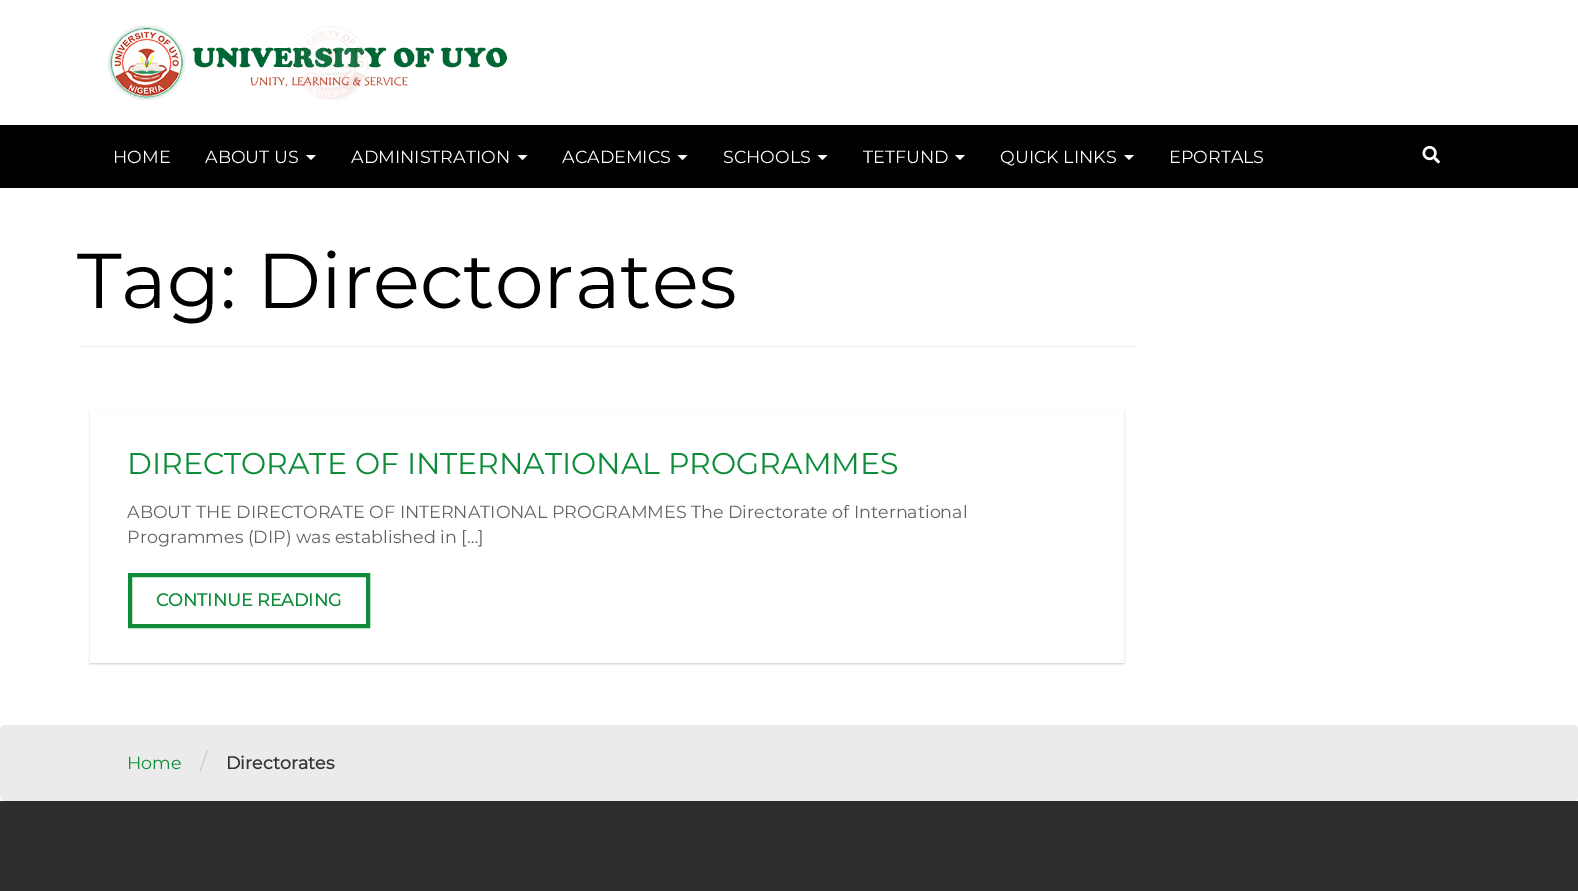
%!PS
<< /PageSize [1578 891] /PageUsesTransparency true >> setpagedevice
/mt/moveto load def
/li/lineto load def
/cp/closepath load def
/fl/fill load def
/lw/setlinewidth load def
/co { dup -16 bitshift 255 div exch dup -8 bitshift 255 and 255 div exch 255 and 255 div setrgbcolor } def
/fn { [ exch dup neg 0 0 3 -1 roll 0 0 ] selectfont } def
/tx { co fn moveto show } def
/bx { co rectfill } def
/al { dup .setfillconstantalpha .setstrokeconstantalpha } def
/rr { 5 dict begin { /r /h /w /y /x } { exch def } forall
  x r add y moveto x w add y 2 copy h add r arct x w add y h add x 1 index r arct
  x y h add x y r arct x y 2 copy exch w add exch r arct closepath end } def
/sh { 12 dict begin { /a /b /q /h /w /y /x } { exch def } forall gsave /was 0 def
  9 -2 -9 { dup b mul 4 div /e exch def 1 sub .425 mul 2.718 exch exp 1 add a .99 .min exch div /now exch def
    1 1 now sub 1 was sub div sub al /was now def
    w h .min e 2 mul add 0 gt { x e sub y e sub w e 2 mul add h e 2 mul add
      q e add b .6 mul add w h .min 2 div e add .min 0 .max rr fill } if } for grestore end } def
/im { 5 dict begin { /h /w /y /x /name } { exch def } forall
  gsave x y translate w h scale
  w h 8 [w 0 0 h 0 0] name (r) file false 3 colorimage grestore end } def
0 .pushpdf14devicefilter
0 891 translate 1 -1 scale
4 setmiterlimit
0 0 1578 891 16#FFFFFF bx
(media/1.raw) 107 25 400 75 im
0 125 1578 63 16#000000 bx
16#FFFFFF co
306 155 mt 316 155 li 311 160 li cp fl
517.5 155 mt 527.5 155 li 522.5 160 li cp fl
677.5 155 mt 687.5 155 li 682.5 160 li cp fl
817.5 155 mt 827.5 155 li 822.5 160 li cp fl
955 155 mt 965 155 li 960 160 li cp fl
1124 155 mt 1134 155 li 1129 160 li cp fl
(media/2.raw) 1422 145 18 19 im
78 346 1058 1 16#EEEEEE bx
16#000000 co
90 411 1034 253 0 1 .2 sh
90 410 1034 253 16#FFFFFF bx
16#0E8C3A co
4 lw
130 575 238 51 rectstroke
16#EBEBEB co
0 725 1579 76 5 rr fl
0 801 1578 90 16#2D2D2D bx
(HOME) 113 163 /Montserrat-Thin 17.5 16#FFFFFF tx
(ABOUT US) 205 163 /Montserrat-Thin 17.5 16#FFFFFF tx
(ADMINISTRATION) 351 163 /Montserrat-Thin 17.5 16#FFFFFF tx
(ACADEMICS) 562 163 /Montserrat-Thin 17.5 16#FFFFFF tx
(SCHOOLS) 723 163 /Montserrat-Thin 17.5 16#FFFFFF tx
(TETFUND) 863 163 /Montserrat-Thin 17.5 16#FFFFFF tx
(QUICK LINKS) 1000 163 /Montserrat-Thin 17.5 16#FFFFFF tx
(EPORTALS) 1169 163 /Montserrat-Thin 17.5 16#FFFFFF tx
(Tag: Directorates) 77 308 /Montserrat-Thin 77.5 16#000000 tx
(DIRECTORATE OF INTERNATIONAL PROGRAMMES) 127 474 /Montserrat-Thin 30 16#0E8C3A tx
(ABOUT THE DIRECTORATE OF INTERNATIONAL PROGRAMMES The Directorate of International) 127 518 /Montserrat-Thin 17.5 16#636363 tx
(Programmes \(DIP\) was established in […]) 127 543 /Montserrat-Thin 17.5 16#636363 tx
(CONTINUE READING) 156 606 /Montserrat-Bold 17.5 16#0E8C3A tx
(Home) 127 769 /Montserrat-Thin 17.5 16#0E8C3A tx
(/) 200 769 /Montserrat-Thin 22 16#CCCCCC tx
(Directorates) 226 769 /Montserrat-Bold 17.5 16#333333 tx
.poppdf14devicefilter showpage
